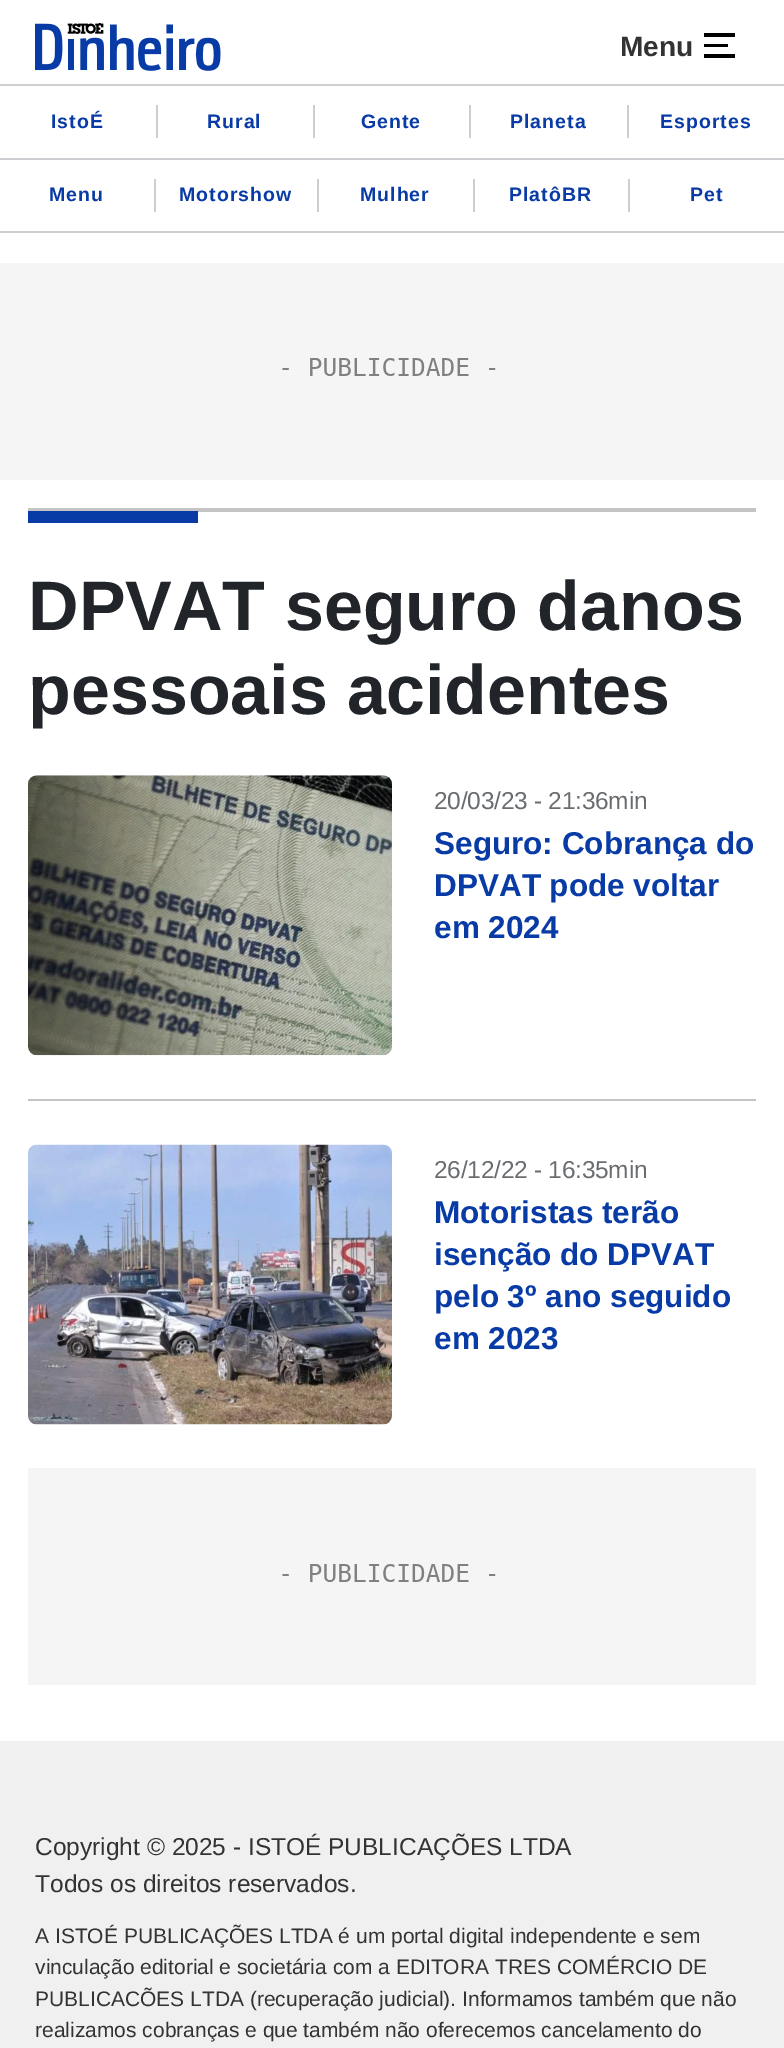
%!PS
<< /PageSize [784 2048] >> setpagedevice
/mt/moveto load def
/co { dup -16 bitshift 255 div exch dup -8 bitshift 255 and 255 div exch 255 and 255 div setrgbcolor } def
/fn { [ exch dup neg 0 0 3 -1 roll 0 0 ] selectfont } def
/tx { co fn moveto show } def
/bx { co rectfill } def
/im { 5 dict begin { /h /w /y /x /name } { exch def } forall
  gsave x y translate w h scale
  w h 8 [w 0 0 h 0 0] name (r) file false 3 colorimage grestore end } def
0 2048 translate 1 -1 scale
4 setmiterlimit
0 0 784 2048 16#FFFFFF bx
(media/1.raw) 35 23 186 48 im
704 33 31 4 16#000000 bx
704 54 31 4 16#000000 bx
704 44 24 3 16#000000 bx
0 84 784 2 16#CCCED2 bx
0 158 784 2 16#CCCED2 bx
156 105 2 33 16#CCCED2 bx
313 105 2 33 16#CCCED2 bx
469 105 2 33 16#CCCED2 bx
627 105 2 33 16#CCCED2 bx
0 231 784 2 16#CCCED2 bx
154 179 2 33 16#CCCED2 bx
317 179 2 33 16#CCCED2 bx
473 179 2 33 16#CCCED2 bx
628 179 2 33 16#CCCED2 bx
0 263 784 217 16#F5F5F5 bx
(media/2.raw) 282 358 214 18 im
28 508 728 4 16#C4C4C4 bx
28 511 170 12 16#083BA6 bx
28 1099 728 2 16#C4C4C4 bx
(media/3.raw) 28 775 364 281 im
(media/4.raw) 28 1144 364 281 im
28 1468 728 217 16#F5F5F5 bx
(media/2.raw) 282 1564 214 18 im
0 1741 784 307 16#F0F0F0 bx
(Menu) 620 56 /LiberationSans-Bold 28 16#333333 tx
/LiberationSans-Bold 19.5 fn
16#083BA6 co
51 128 mt 1 0 (IstoÉ) ashow
207 128 mt 1 0 (Rural) ashow
361 128 mt 1 0 (Gente) ashow
510 128 mt 1 0 (Planeta) ashow
660 128 mt 1 0 (Esportes) ashow
49 201 mt 1 0 (Menu) ashow
179 201 mt 1 0 (Motorshow) ashow
360 201 mt 1 0 (Mulher) ashow
509 201 mt 1 0 (PlatôBR) ashow
690 201 mt 1 0 (Pet) ashow
(DPVAT seguro danos) 28 630 /LiberationSans-Bold 70 16#212529 tx
(pessoais acidentes) 28 714 /LiberationSans-Bold 70 16#212529 tx
/LiberationSans-Regular 24.5 fn
16#696D70 co
434 809 mt -.25 0 (20/03/23 - 21:36min) ashow
(Seguro: Cobrança do) 434 854 /LiberationSans-Bold 31.5 16#083BA6 tx
(DPVAT pode voltar) 434 896 /LiberationSans-Bold 31.5 16#083BA6 tx
(em 2024) 434 938 /LiberationSans-Bold 31.5 16#083BA6 tx
/LiberationSans-Regular 24.5 fn
16#696D70 co
434 1178 mt -.25 0 (26/12/22 - 16:35min) ashow
(Motoristas terão) 434 1223 /LiberationSans-Bold 31.5 16#083BA6 tx
(isenção do DPVAT) 434 1265 /LiberationSans-Bold 31.5 16#083BA6 tx
(pelo 3º ano seguido) 434 1307 /LiberationSans-Bold 31.5 16#083BA6 tx
(em 2023) 434 1349 /LiberationSans-Bold 31.5 16#083BA6 tx
(Copyright © 2025 - ISTOÉ PUBLICAÇÕES LTDA) 35 1855 /LiberationSans-Regular 24.5 16#333333 tx
(Todos os direitos reservados.) 35 1892 /LiberationSans-Regular 24.5 16#333333 tx
(A ISTOÉ PUBLICAÇÕES LTDA é um portal digital independente e sem) 35 1943 /LiberationSans-Regular 21 16#333333 tx
(vinculação editorial e societária com a EDITORA TRES COMÉRCIO DE) 35 1974 /LiberationSans-Regular 21 16#333333 tx
(PUBLICACÕES LTDA \(recuperação judicial\). Informamos também que não) 35 2006 /LiberationSans-Regular 21 16#333333 tx
(realizamos cobranças e que também não oferecemos cancelamento do) 35 2037 /LiberationSans-Regular 21 16#333333 tx
showpage
